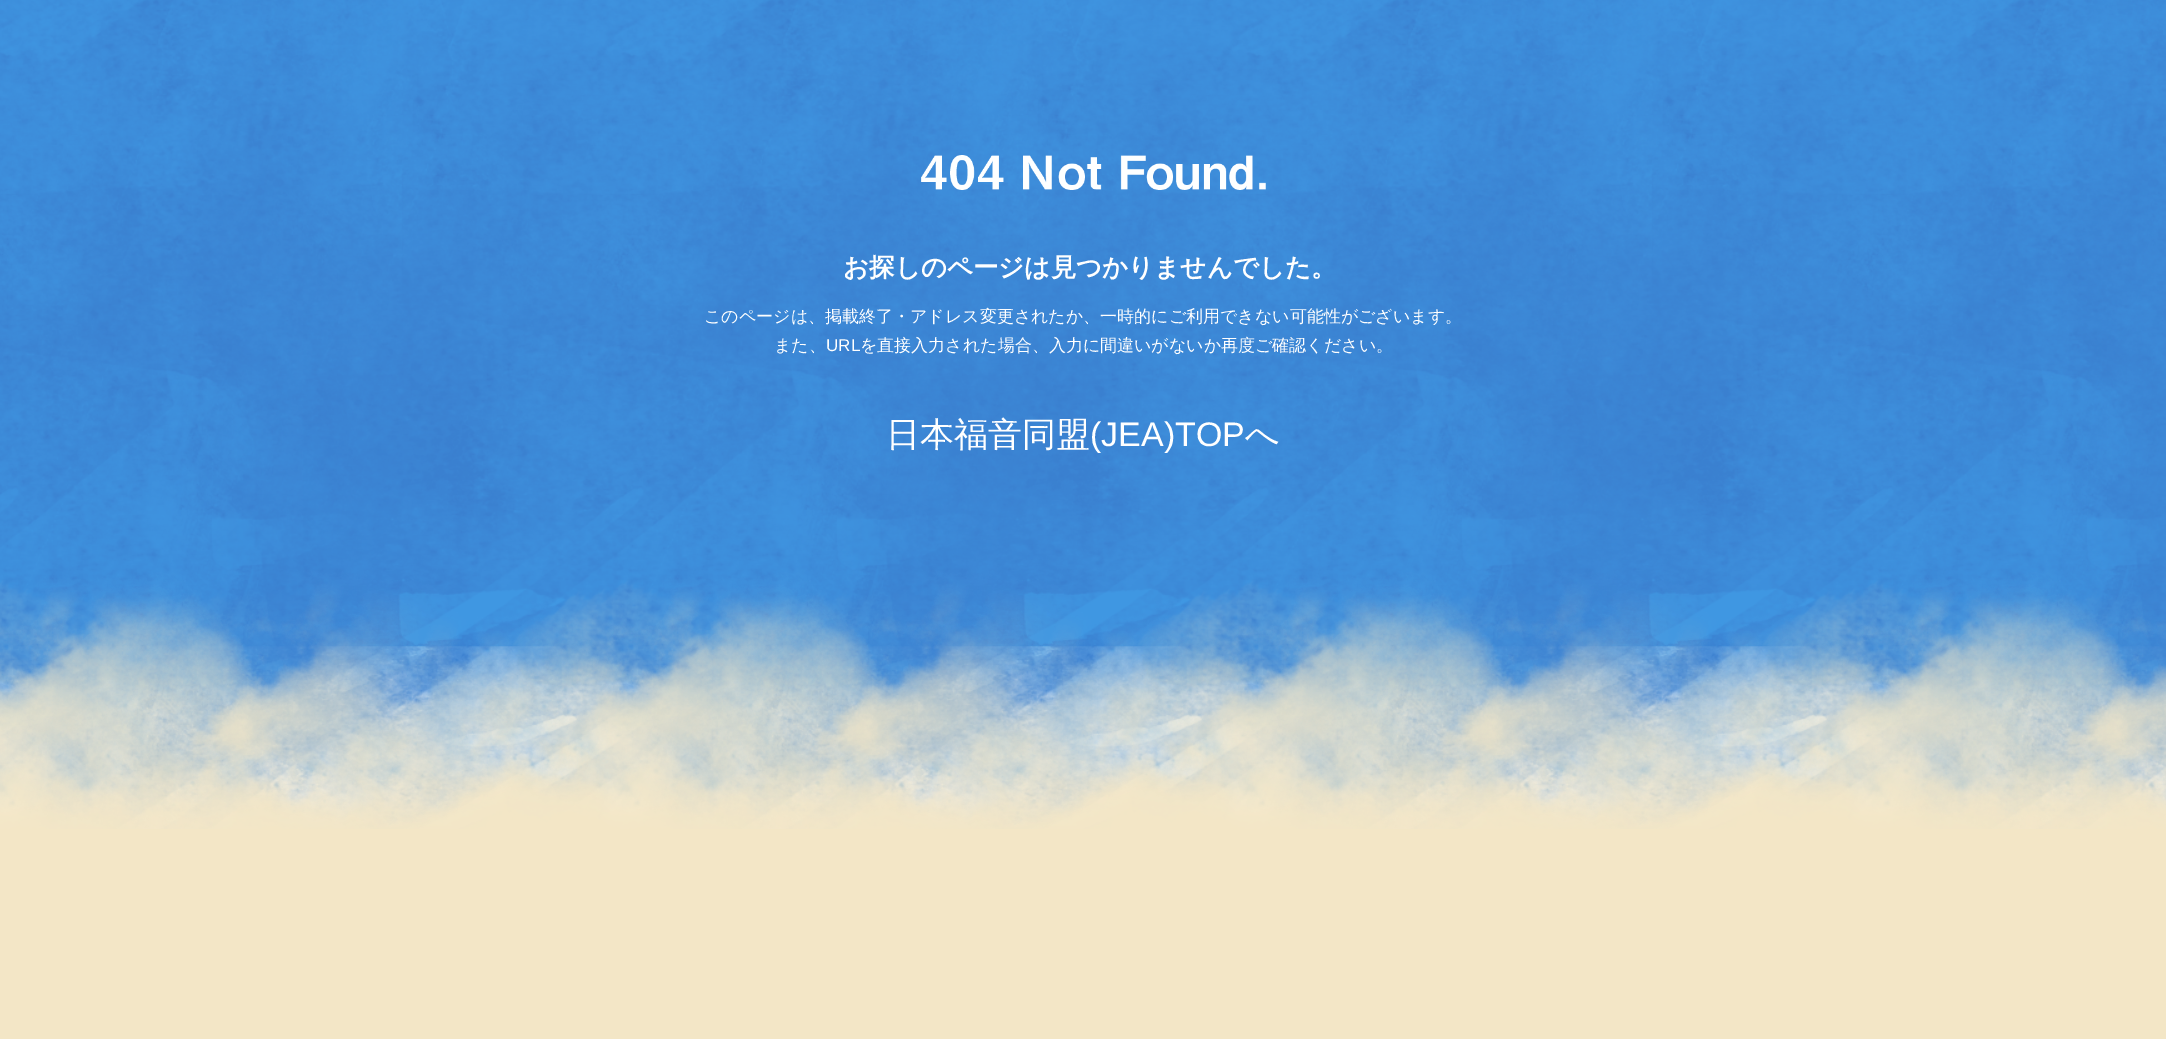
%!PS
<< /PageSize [2166 1039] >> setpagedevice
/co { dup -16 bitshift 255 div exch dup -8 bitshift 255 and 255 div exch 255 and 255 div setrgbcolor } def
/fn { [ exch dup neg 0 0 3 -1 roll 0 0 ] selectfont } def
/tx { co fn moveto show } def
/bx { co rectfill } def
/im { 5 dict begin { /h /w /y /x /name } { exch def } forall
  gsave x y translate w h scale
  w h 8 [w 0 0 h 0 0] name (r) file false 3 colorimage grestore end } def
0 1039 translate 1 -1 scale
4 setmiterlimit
0 0 2166 1039 16#F3E6C6 bx
(media/1.raw) 0 0 2166 829 im
(media/2.raw) 921 155 345 35 im
(お探しのページは見つかりませんでした。) 843 276 /WenQuanYiZenHei-Bold 25.5 16#FFFFFF tx
(このページは、掲載終了・アドレス変更されたか、一時的にご利用できない可能性がございます。) 704 322 /WenQuanYiZenHei-Medium 17 16#FFFFFF tx
(また、) 774 351 /WenQuanYiZenHei-Medium 17 16#FFFFFF tx
(URL) 826 351 /LiberationSans-Regular 17 16#FFFFFF tx
(を直接入力された場合、入力に間違いがないか再度ご確認ください。) 860 351 /WenQuanYiZenHei-Medium 17 16#FFFFFF tx
(日本福音同盟) 886 446 /WenQuanYiZenHei-Medium 34 16#FFFFFF tx
(\(JEA\)TOP) 1090 446 /LiberationSans-Regular 34 16#FFFFFF tx
(へ) 1245 446 /WenQuanYiZenHei-Medium 34 16#FFFFFF tx
showpage
